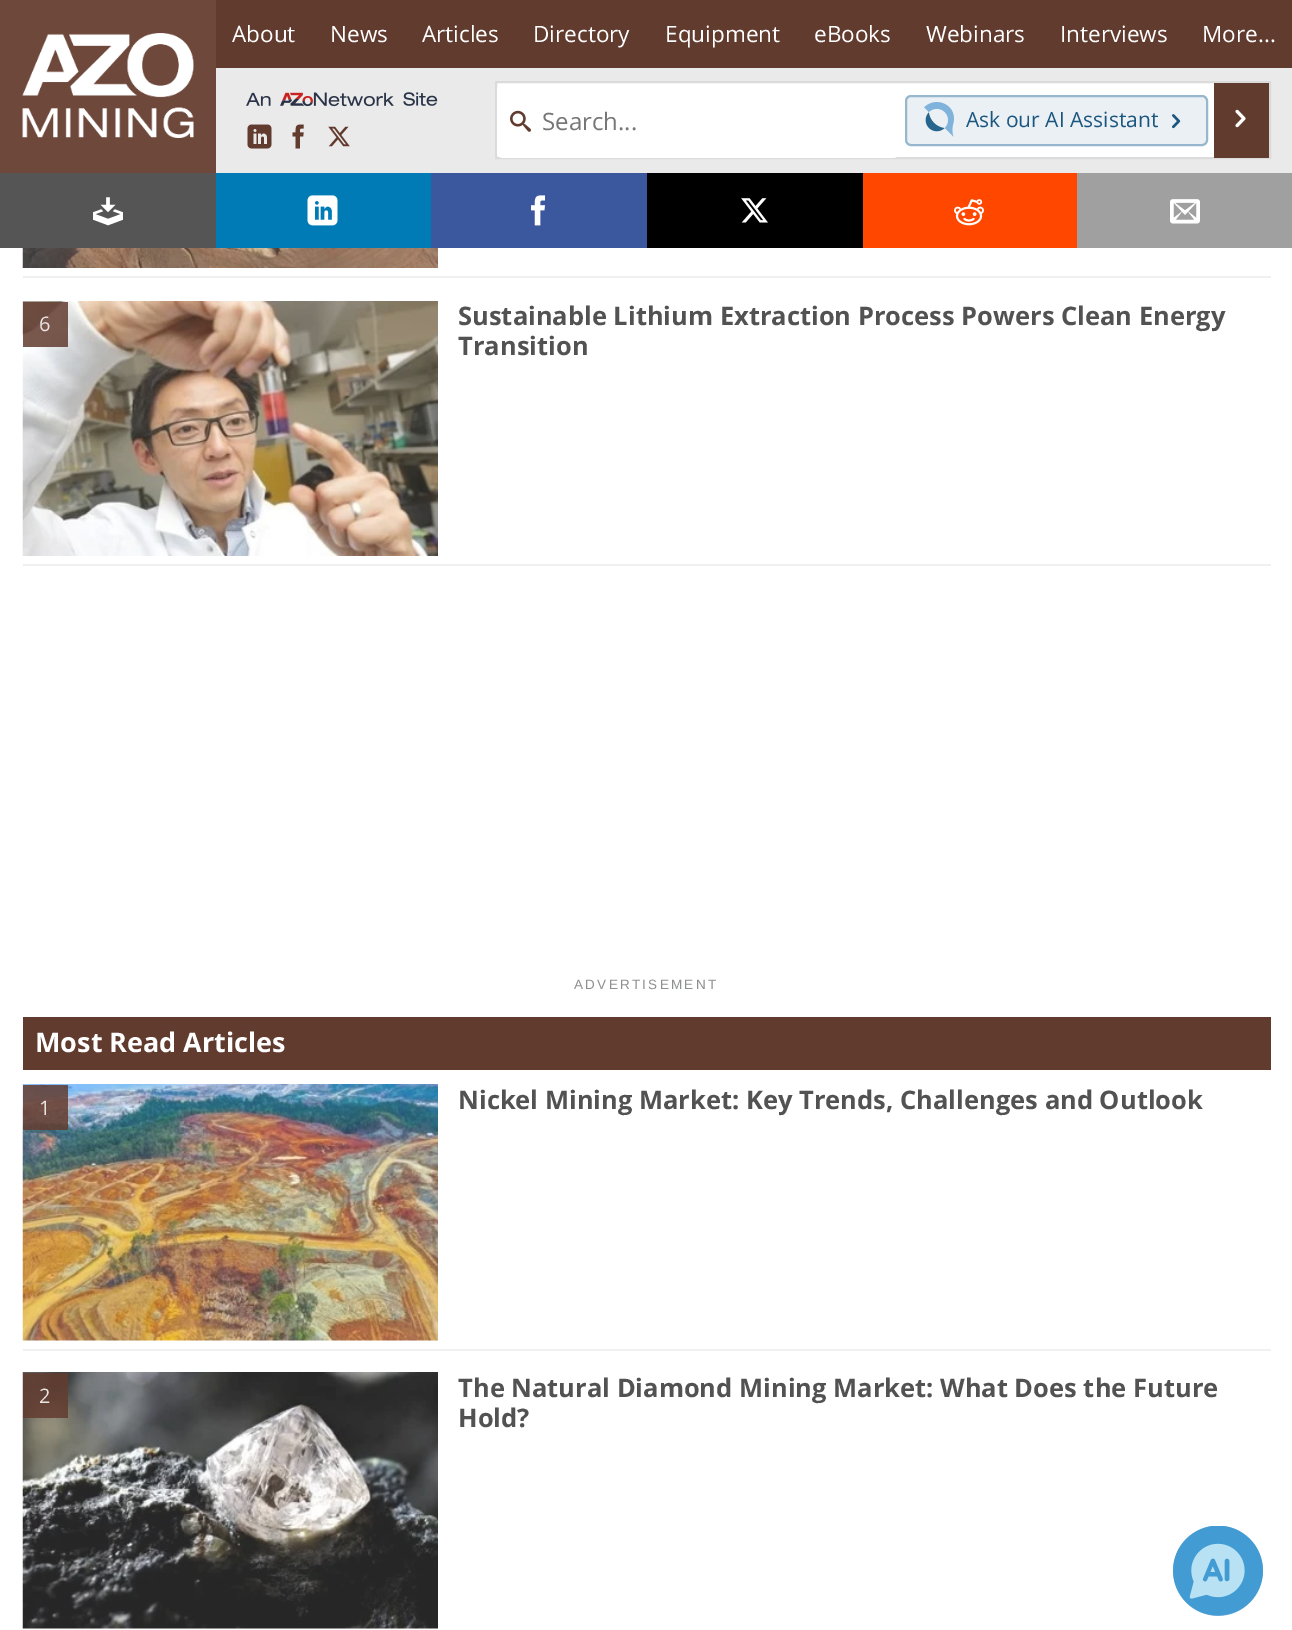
%!PS
<< /PageSize [1292 1630] /PageUsesTransparency true >> setpagedevice
/mt/moveto load def
/fl/fill load def
/st/stroke load def
/gs/gsave load def
/gr/grestore load def
/lw/setlinewidth load def
/co { dup -16 bitshift 255 div exch dup -8 bitshift 255 and 255 div exch 255 and 255 div setrgbcolor } def
/fn { [ exch dup neg 0 0 3 -1 roll 0 0 ] selectfont } def
/tx { co fn moveto show } def
/bx { co rectfill } def
/al { dup .setfillconstantalpha .setstrokeconstantalpha } def
/ci { newpath 0 360 arc closepath } def
/rr { 5 dict begin { /r /h /w /y /x } { exch def } forall
  x r add y moveto x w add y 2 copy h add r arct x w add y h add x 1 index r arct
  x y h add x y r arct x y 2 copy exch w add exch r arct closepath end } def
/im { 5 dict begin { /h /w /y /x /name } { exch def } forall
  gsave x y translate w h scale
  w h 8 [w 0 0 h 0 0] name (r) file false 3 colorimage grestore end } def
0 .pushpdf14devicefilter
0 1630 translate 1 -1 scale
4 setmiterlimit
0 0 1292 1630 16#FFFFFF bx
216 68 1076 105 16#EAEAEA bx
0 0 216 173 16#6F483C bx
(media/1.raw) 22 33 172 105 im
216 0 1076 68 16#623B2F bx
(media/2.raw) 246 92 192 15 im
(media/3.raw) 247 124 25 25 im
(media/4.raw) 292 124 12 25 im
(media/5.raw) 328 126 22 21 im
497 83 717 74 16#FFFFFF bx
16#DBDBDB co
2 lw
496 82 774 76 rectstroke
16#FFFFFF co
497 84 402 74 6 rr fl
(media/6.raw) 510 110 21 22 im
16#EBF0F5 co
906 96 301 49 5 rr gs fl gr
16#97B7CE co
st
(media/7.raw) 924 102 30 35 im
(media/8.raw) 1172 114 9 15 im
1214 83 55 75 16#623B2F bx
(media/9.raw) 1235 109 11 19 im
0 173 216 75 16#555555 bx
(media/10.raw) 93 197 30 29 im
216 173 215 75 16#007BB6 bx
(media/11.raw) 307 195 31 31 im
431 173 216 75 16#3B579D bx
(media/12.raw) 531 195 14 31 im
647 173 216 75 16#000000 bx
(media/13.raw) 741 198 27 25 im
863 173 214 75 16#FF4700 bx
(media/14.raw) 954 199 30 27 im
1077 173 215 75 16#A0A0A0 bx
(media/15.raw) 1170 199 30 25 im
23 276 1248 2 16#F0F0F0 bx
(media/16.raw) 22 248 416 20 im
23 564 1248 2 16#F0F0F0 bx
(media/17.raw) 22 301 416 255 im
0.85 al
23 302 45 45 16#623B2F bx
1 al
23 1017 1248 53 16#623B2F bx
23 1349 1248 2 16#F0F0F0 bx
(media/18.raw) 22 1084 416 257 im
0.85 al
23 1085 45 45 16#623B2F bx
1 al
(media/19.raw) 22 1372 416 257 im
0.85 al
23 1373 45 45 16#623B2F bx
1 al
16#7FB3DB co
1218 1571 45 ci fl
(media/20.raw) 1173 1526 90 90 im
(About) 232 42 /OpenSans-Regular 22.5 16#FFFFFF tx
(News) 330 42 /OpenSans-Regular 22.5 16#FFFFFF tx
(Articles) 422 42 /OpenSans-Regular 22.5 16#FFFFFF tx
(Directory) 533 42 /OpenSans-Regular 22.5 16#FFFFFF tx
(Equipment) 665 42 /OpenSans-Regular 22.5 16#FFFFFF tx
(eBooks) 814 42 /OpenSans-Regular 22.5 16#FFFFFF tx
(Webinars) 926 42 /OpenSans-Regular 22.5 16#FFFFFF tx
(Interviews) 1060 42 /OpenSans-Regular 22.5 16#FFFFFF tx
(More...) 1202 42 /OpenSans-Regular 22.5 16#FFFFFF tx
(Search...) 542 130 /OpenSans-Regular 24 16#777777 tx
(Ask our AI Assistant) 966 127 /OpenSans-Regular 21 16#1A567E tx
(6) 39 331 /OpenSans-Regular 20 16#EAE6E4 tx
(Sustainable Lithium Extraction Process Powers Clean Energy) 458 325 /OpenSans-Bold 25.5 16#525252 tx
(Transition) 458 355 /OpenSans-Bold 25.5 16#525252 tx
/LiberationSans-Regular 13.5 fn
16#8E8F91 co
574 989 mt 2.25 0 (ADVERTISEMENT) ashow
(Most Read Articles) 35 1052 /OpenSans-Bold 27 16#FFFFFF tx
(1) 39 1115 /OpenSans-Regular 20 16#EAE6E4 tx
(Nickel Mining Market: Key Trends, Challenges and Outlook) 458 1109 /OpenSans-Bold 25.5 16#525252 tx
(2) 39 1403 /OpenSans-Regular 20 16#EAE6E4 tx
(The Natural Diamond Mining Market: What Does the Future) 458 1397 /OpenSans-Bold 25.5 16#525252 tx
(Hold?) 458 1427 /OpenSans-Bold 25.5 16#525252 tx
.poppdf14devicefilter showpage
